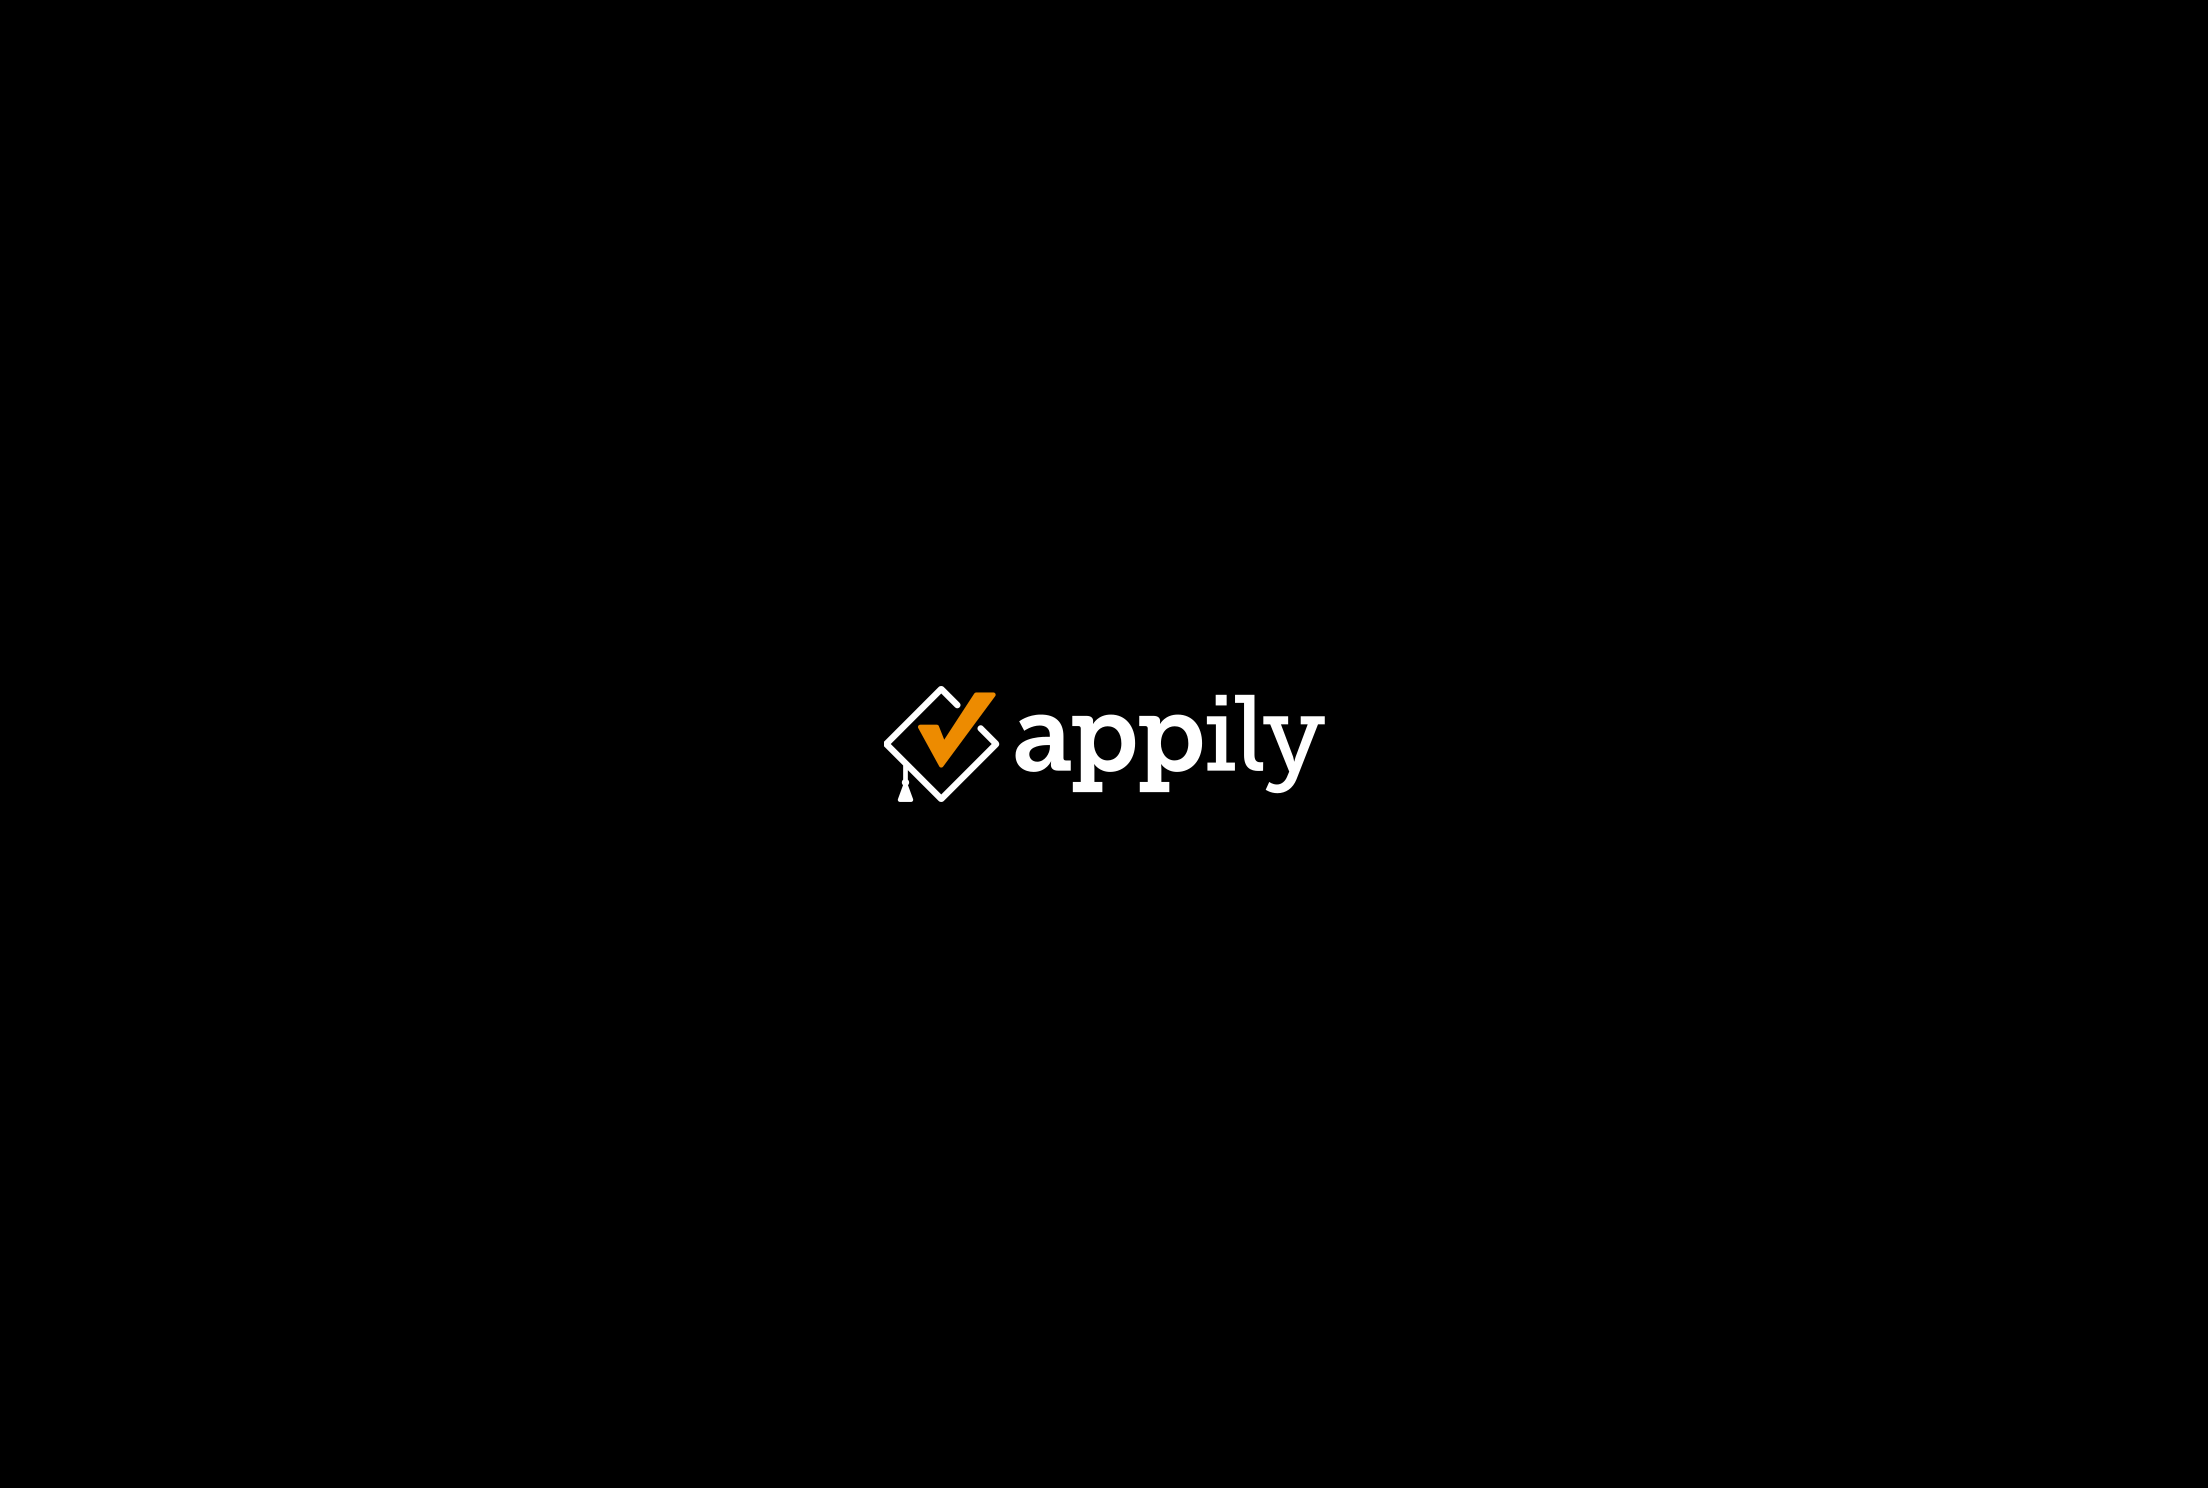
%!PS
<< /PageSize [2208 1488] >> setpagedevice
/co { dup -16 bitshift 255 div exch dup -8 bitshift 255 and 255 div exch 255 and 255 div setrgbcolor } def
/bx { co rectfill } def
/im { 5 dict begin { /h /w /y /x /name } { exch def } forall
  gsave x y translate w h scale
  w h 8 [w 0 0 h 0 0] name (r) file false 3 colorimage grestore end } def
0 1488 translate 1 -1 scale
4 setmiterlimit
0 0 2208 1488 16#000000 bx
(media/1.raw) 884 686 441 116 im
showpage
